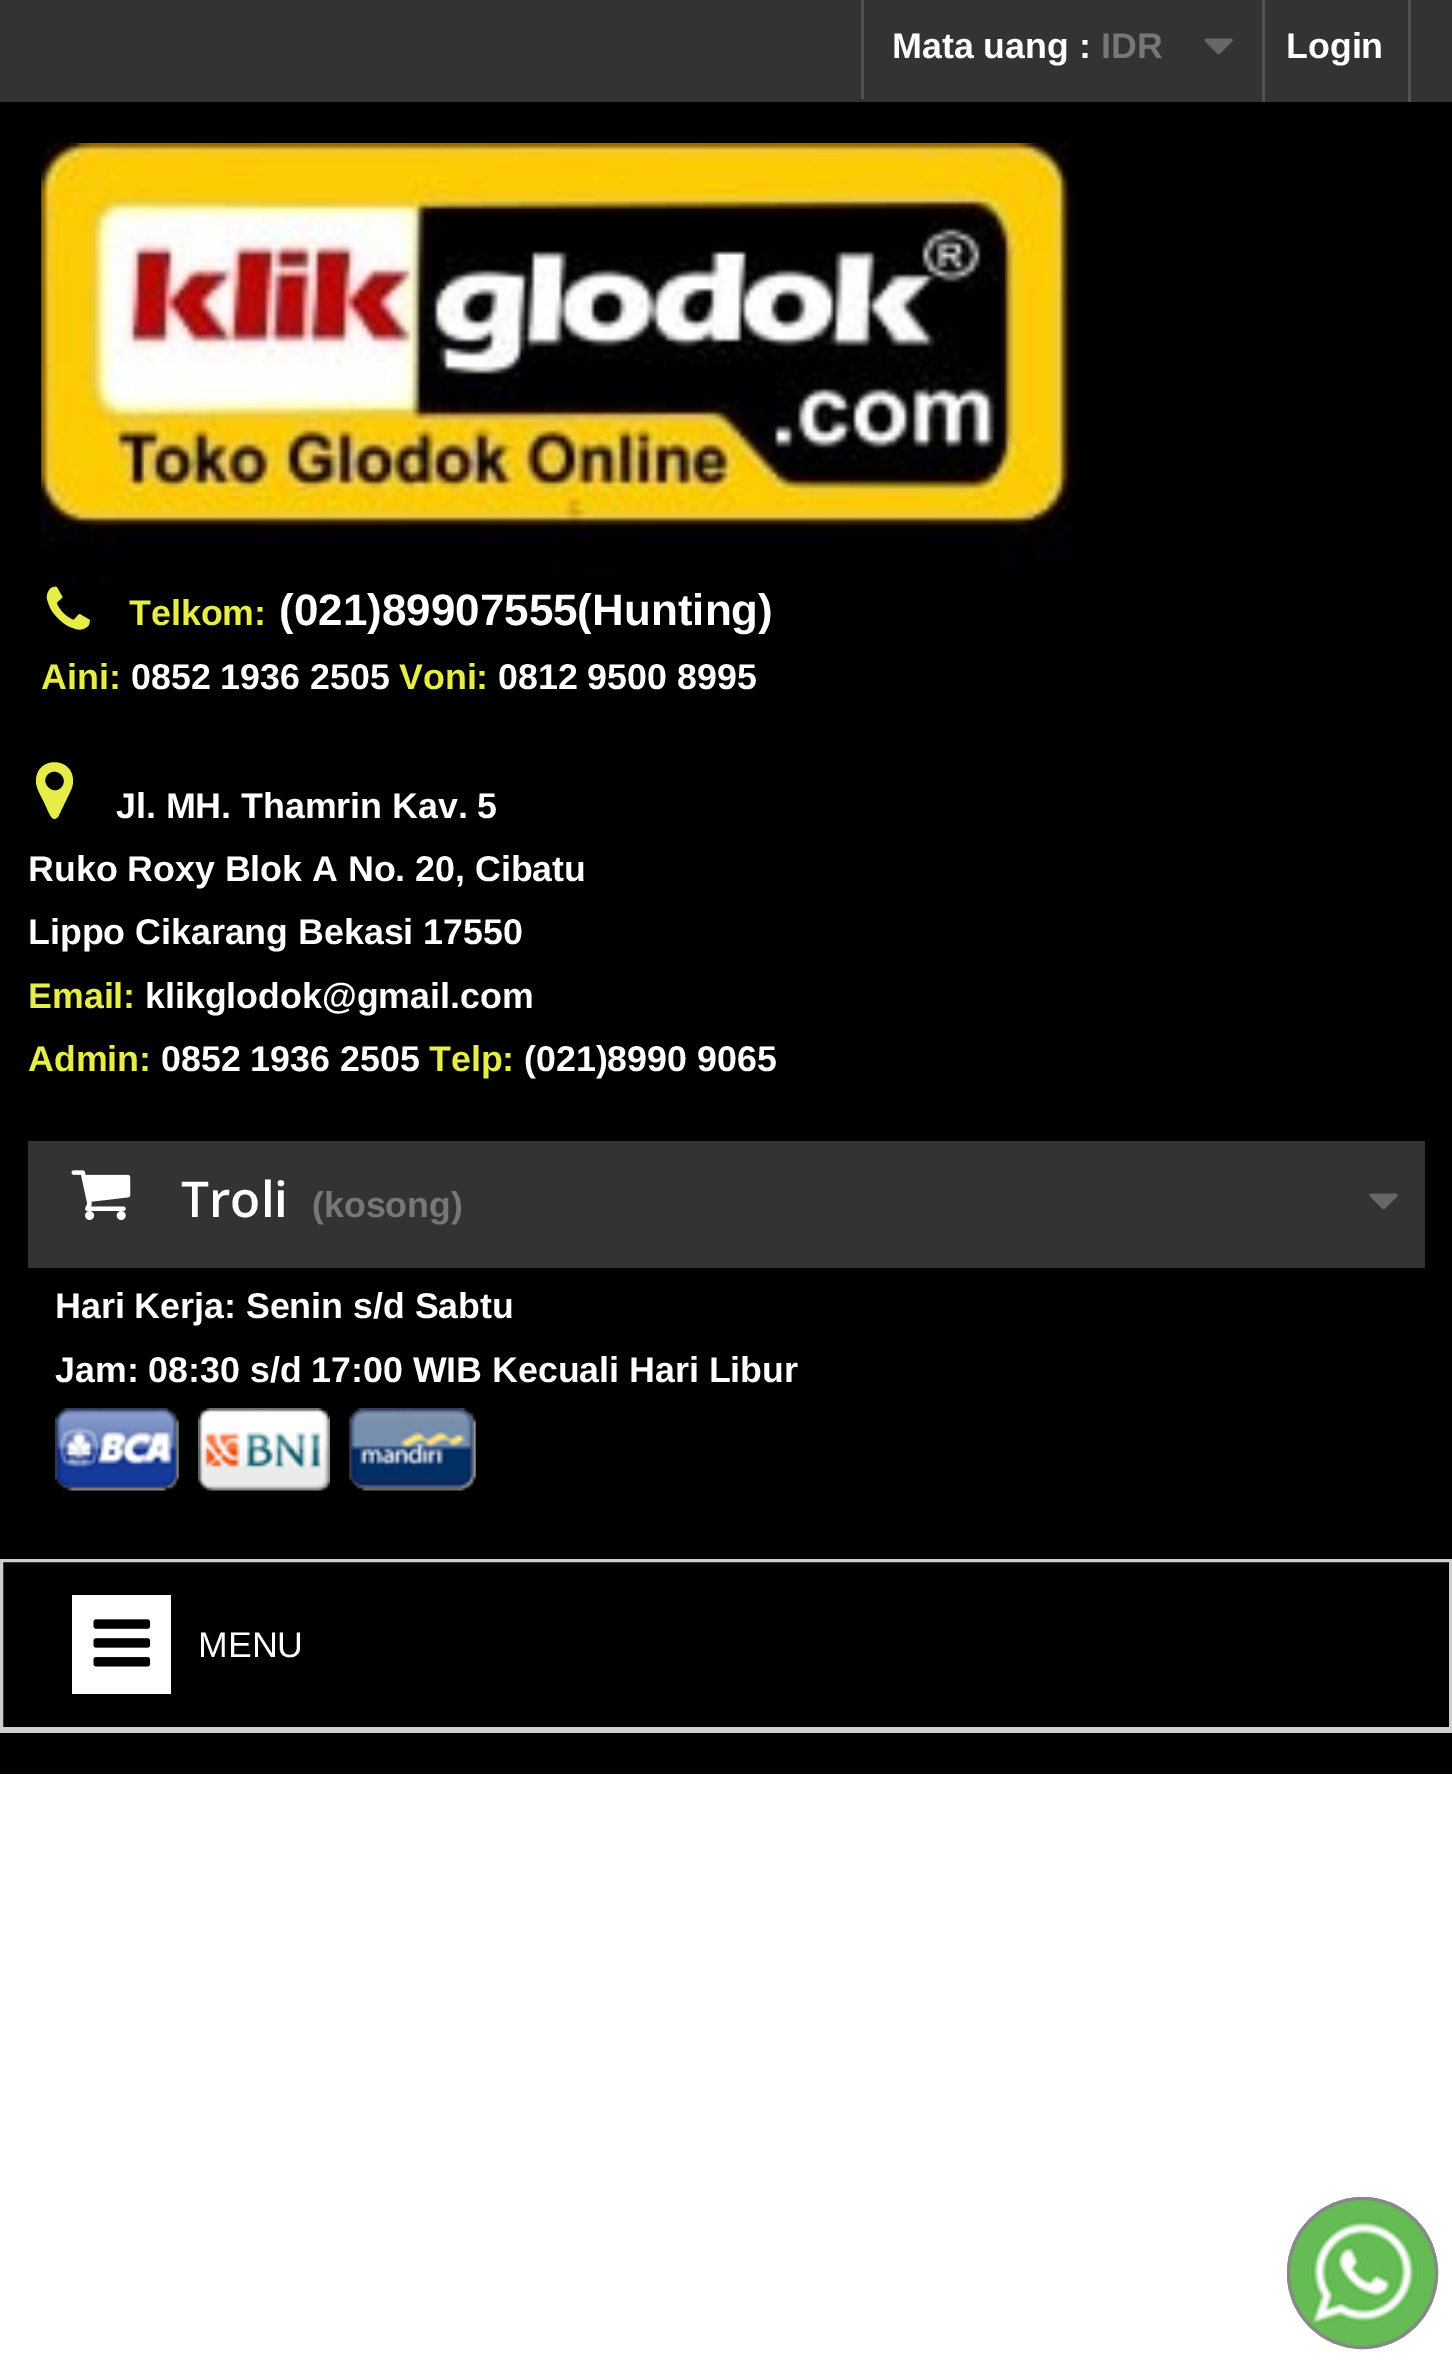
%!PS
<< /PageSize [1452 2362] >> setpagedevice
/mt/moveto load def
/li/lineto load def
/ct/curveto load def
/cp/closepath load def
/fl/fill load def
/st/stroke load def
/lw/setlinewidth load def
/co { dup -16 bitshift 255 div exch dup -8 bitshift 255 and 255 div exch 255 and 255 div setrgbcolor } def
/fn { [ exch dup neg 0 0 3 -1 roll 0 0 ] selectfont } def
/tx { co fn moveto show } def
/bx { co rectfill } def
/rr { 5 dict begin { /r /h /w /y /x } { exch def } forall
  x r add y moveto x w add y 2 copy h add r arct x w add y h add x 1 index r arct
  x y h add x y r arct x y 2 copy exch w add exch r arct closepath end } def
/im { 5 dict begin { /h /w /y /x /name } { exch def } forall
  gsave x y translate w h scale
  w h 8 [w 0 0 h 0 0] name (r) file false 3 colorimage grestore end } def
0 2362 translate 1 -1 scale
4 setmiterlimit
0 0 1452 2362 16#FFFFFF bx
0 102 1452 1672 16#000000 bx
0 0 1452 102 16#333333 bx
861 0 3 99 16#515151 bx
(media/1.raw) 1204 38 29 17 im
1408 0 3 102 16#515151 bx
1262 0 3 102 16#515151 bx
(media/2.raw) 41 143 1034 440 im
(media/3.raw) 46 586 44 44 im
16#E6ED48 co
61 788 mt 70 779 57 766 48 774 ct 39 783 53 796 61 788 ct cp 73 781 mt 73 785 72 788 70 792 ct 58 817 li 55 819 li 51 819 50 814 48 811 ct 44 802 li 41 796 36 788 36 781 ct 36 756 73 756 73 781 ct cp fl
28 1141 1397 127 16#333333 bx
(media/4.raw) 71 1170 60 50 im
(media/1.raw) 1369 1193 29 17 im
(media/5.raw) 55 1408 124 83 im
(media/6.raw) 198 1408 132 83 im
(media/7.raw) 349 1408 127 83 im
16#CECECE co
3 lw
1.5 1560.5 1449 168 rectstroke
72 1595 99 99 16#FFFFFF bx
(media/8.raw) 93 1619 58 48 im
0 1730 1452 3 16#CECECE bx
16#65BC54 co
1287 2197 151 152 75.5 rr fl
(media/9.raw) 1300 2210 125 126 im
16#888888 co
1288.5 2198.5 148 149 74 rr st
(Mata uang :) 892 58 /LiberationSans-Bold 35.75 16#FFFFFF tx
(IDR) 1101 58 /LiberationSans-Bold 35.75 16#777777 tx
(Login) 1286 58 /LiberationSans-Bold 35.75 16#FFFFFF tx
(Telkom:) 129 625 /LiberationSans-Bold 35.75 16#E6ED48 tx
(\(021\)89907555\(Hunting\)) 279 625 /LiberationSans-Bold 44 16#FFFFFF tx
(Aini:) 41 689 /LiberationSans-Bold 35.75 16#E6ED48 tx
(0852 1936 2505) 131 689 /LiberationSans-Bold 35.75 16#FFFFFF tx
(Voni:) 399 689 /LiberationSans-Bold 35.75 16#E6ED48 tx
(0812 9500 8995) 498 689 /LiberationSans-Bold 35.75 16#FFFFFF tx
(Jl. MH. Thamrin Kav. 5) 116 818 /LiberationSans-Bold 35.75 16#FFFFFF tx
(Ruko Roxy Blok A No. 20, Cibatu) 28 881 /LiberationSans-Bold 35.75 16#FFFFFF tx
(Lippo Cikarang Bekasi 17550) 28 944 /LiberationSans-Bold 35.75 16#FFFFFF tx
(Email:) 28 1008 /LiberationSans-Bold 35.75 16#E6ED48 tx
(klikglodok@gmail.com) 145 1008 /LiberationSans-Bold 35.75 16#FFFFFF tx
(Admin:) 28 1071 /LiberationSans-Bold 35.75 16#E6ED48 tx
(0852 1936 2505) 161 1071 /LiberationSans-Bold 35.75 16#FFFFFF tx
(Telp:) 429 1071 /LiberationSans-Bold 35.75 16#E6ED48 tx
(\(021\)8990 9065) 524 1071 /LiberationSans-Bold 35.75 16#FFFFFF tx
(Troli) 181 1217 /OpenSans-SemiBold 49.5 16#FFFFFF tx
(\(kosong\)) 312 1217 /LiberationSans-Bold 35.75 16#777777 tx
(Hari Kerja: Senin s/d Sabtu) 55 1318 /LiberationSans-Bold 35.75 16#FFFFFF tx
(Jam: 08:30 s/d 17:00 WIB Kecuali Hari Libur) 55 1382 /LiberationSans-Bold 35.75 16#FFFFFF tx
(MENU) 198 1657 /LiberationSans-Regular 35.75 16#FFFFFF tx
showpage
